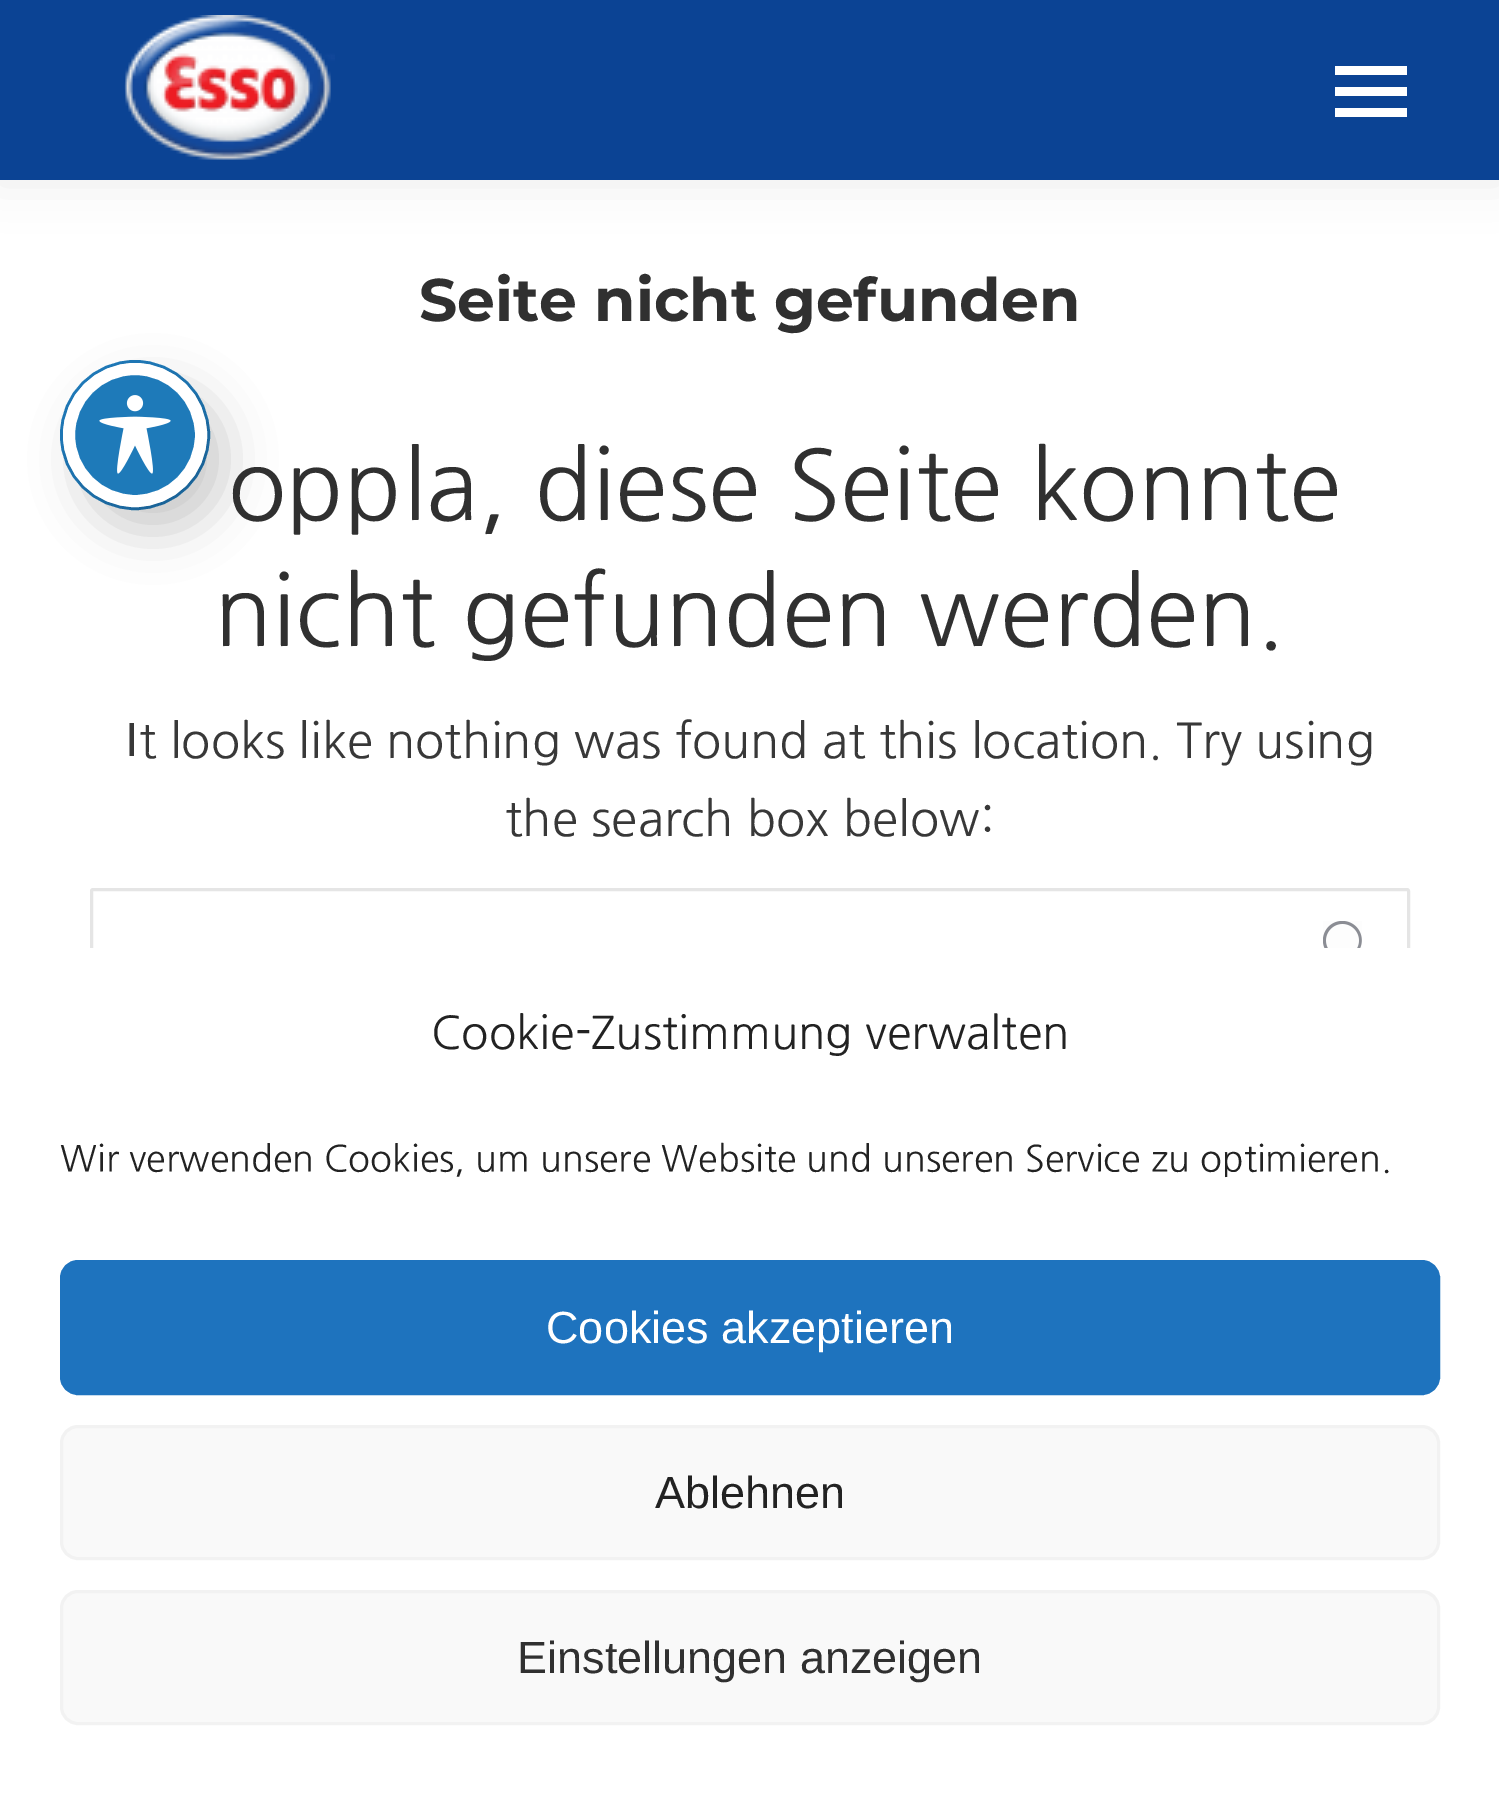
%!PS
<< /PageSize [1499 1798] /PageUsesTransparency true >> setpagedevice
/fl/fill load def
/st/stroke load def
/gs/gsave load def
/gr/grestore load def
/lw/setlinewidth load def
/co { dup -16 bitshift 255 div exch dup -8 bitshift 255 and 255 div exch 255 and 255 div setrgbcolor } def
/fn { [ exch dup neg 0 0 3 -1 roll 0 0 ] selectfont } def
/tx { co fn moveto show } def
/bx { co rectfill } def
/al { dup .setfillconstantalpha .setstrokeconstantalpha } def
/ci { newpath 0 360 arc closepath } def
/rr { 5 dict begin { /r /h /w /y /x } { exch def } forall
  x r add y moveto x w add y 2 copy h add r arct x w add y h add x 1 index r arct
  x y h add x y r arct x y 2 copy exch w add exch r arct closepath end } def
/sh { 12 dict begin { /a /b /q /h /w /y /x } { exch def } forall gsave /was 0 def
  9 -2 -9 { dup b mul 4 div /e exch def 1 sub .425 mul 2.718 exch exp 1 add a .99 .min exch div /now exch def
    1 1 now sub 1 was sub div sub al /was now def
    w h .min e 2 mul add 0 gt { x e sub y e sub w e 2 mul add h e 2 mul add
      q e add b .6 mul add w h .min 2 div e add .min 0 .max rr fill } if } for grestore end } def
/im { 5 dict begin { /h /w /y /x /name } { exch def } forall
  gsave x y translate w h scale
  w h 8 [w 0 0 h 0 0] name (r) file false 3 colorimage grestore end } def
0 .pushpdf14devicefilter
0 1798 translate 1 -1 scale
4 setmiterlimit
0 0 1499 1798 16#FFFFFF bx
16#000000 co
-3 -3 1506 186 0 22.5 .07 sh
0 0 1499 180 16#0B4394 bx
(media/1.raw) 124 15 211 145 im
1335 66 72 9 16#FFFFFF bx
1335 87 72 9 16#FFFFFF bx
1335 108 72 9 16#FFFFFF bx
16#E5E5E5 co
3 lw
91.5 889.5 1317 111 1.5 rr st
(media/2.raw) 1323 921 39 27 im
16#1E7AB9 co
135 435 73.5 ci st
16#000000 co
81 387 144 144 72 24 .2 sh
16#1E7AB9 co
135 435 66 ci gs fl gr
16#FFFFFF co
12 lw
st
(media/3.raw) 99 395 72 79 im
0 948 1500 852 36 rr fl
16#1E73BE co
61.5 1261.5 1377 132 16.5 rr gs fl gr
3 lw
st
16#F9F9F9 co
61.5 1426.5 1377 132 16.5 rr gs fl gr
16#F2F2F2 co
st
16#F9F9F9 co
61.5 1591.5 1377 132 16.5 rr gs fl gr
16#F2F2F2 co
st
(Seite nicht gefunden) 419 321 /Montserrat-Bold 60 16#303030 tx
(oppla, diese Seite konnte) 228 516 /NanumGothic-Regular 96 16#303030 tx
(nicht gefunden werden.) 214 642 /NanumGothic-Regular 96 16#303030 tx
(I) 125 756 /LiberationSans-Regular 48 16#383838 tx
(t looks like nothing was found at this location. Try using) 139 756 /NanumGothic-Regular 48 16#383838 tx
(the search box below:) 505 834 /NanumGothic-Regular 48 16#383838 tx
(Cookie-Zustimmung verwalten) 431 1047 /NanumGothic-Regular 45 16#222222 tx
(Wir verwenden Cookies, um unsere Website und unseren Service zu optimieren.) 60 1170 /NanumGothic-Regular 36 16#222222 tx
(Cookies akzeptieren) 546 1343 /LiberationSans-Regular 45 16#FFFFFF tx
(Ablehnen) 655 1508 /LiberationSans-Regular 45 16#222222 tx
(Einstellungen anzeigen) 517 1673 /LiberationSans-Regular 45 16#303030 tx
.poppdf14devicefilter showpage
